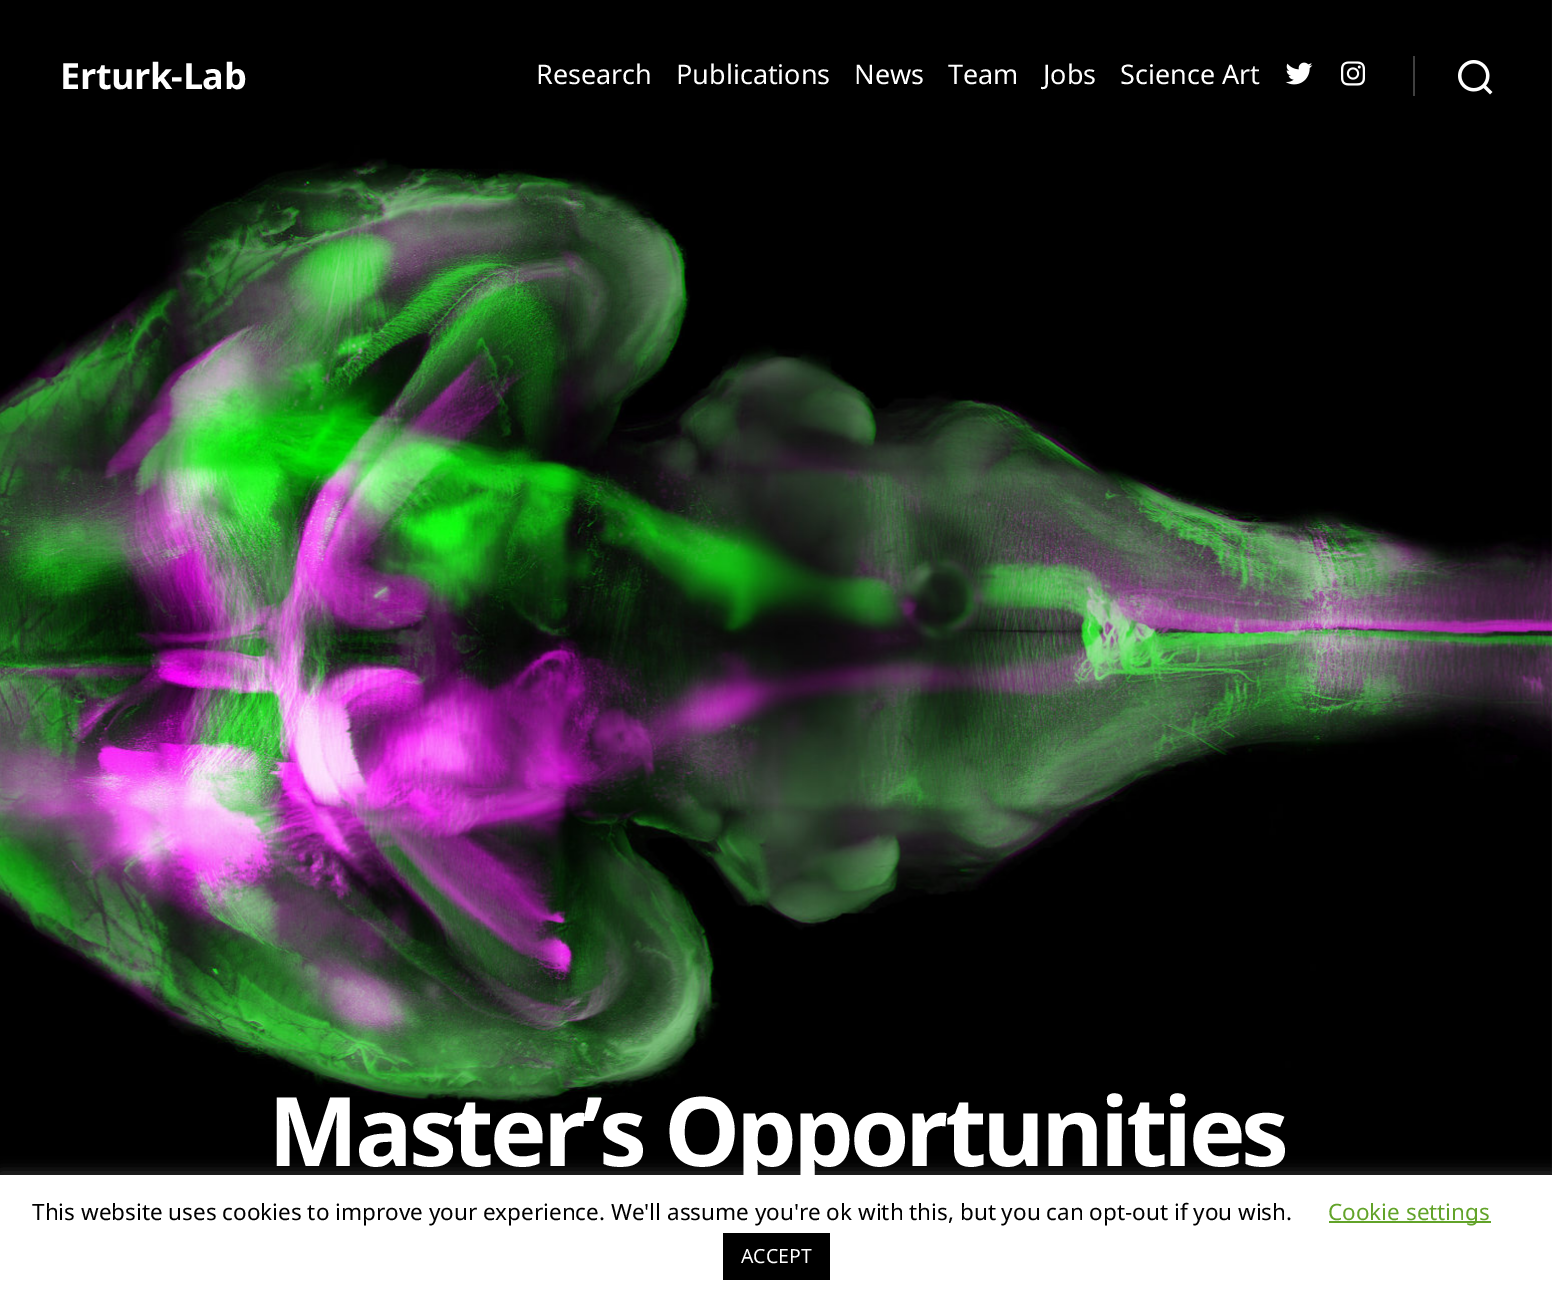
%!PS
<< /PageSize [1552 1305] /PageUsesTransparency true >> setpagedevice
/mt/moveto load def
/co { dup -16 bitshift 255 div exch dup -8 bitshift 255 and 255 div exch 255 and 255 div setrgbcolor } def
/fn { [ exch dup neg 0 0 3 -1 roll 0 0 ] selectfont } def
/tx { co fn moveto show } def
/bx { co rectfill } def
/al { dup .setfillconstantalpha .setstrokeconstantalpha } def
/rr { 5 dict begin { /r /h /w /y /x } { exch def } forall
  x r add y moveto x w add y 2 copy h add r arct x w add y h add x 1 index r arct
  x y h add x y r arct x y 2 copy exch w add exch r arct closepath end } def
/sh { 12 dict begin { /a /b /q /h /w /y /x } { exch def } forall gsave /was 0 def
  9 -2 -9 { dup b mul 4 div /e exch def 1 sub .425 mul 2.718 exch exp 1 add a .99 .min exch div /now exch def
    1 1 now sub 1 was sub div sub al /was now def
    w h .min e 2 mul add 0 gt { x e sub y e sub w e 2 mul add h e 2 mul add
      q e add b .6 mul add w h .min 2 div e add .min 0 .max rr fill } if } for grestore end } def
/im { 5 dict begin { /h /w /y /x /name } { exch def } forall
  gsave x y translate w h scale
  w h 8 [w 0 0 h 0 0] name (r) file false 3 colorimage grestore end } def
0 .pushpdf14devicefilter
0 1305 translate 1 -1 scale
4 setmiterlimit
0 0 1552 1305 16#FFFFFF bx
(media/4.raw) 0 0 1552 1175 im
(media/1.raw) 1285 62 28 23 im
(media/2.raw) 1341 61 24 25 im
1413 56 2 40 16#404040 bx
(media/3.raw) 1458 60 35 35 im
16#ACABAB co
0 1173 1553 131 0 7.5 .3 sh
0 1175 1552 130 16#FFFFFF bx
1329 1221 162 2 16#62A329 bx
723 1233 107 47 16#000000 bx
/NotoSans-Bold 36 fn
16#FFFFFF co
60 89 mt -.5 0 (Erturk-Lab) ashow
(Research) 536 84 /NotoSans-Regular 27 16#FFFFFF tx
(Publications) 676 84 /NotoSans-Regular 27 16#FFFFFF tx
(News) 854 84 /NotoSans-Regular 27 16#FFFFFF tx
(Team) 948 84 /NotoSans-Regular 27 16#FFFFFF tx
(Jobs) 1043 84 /NotoSans-Regular 27 16#FFFFFF tx
(Science Art) 1120 84 /NotoSans-Regular 27 16#FFFFFF tx
/NotoSans-Bold 96 fn
268 1166 mt -4 0 (Master’s Opportunities) ashow
(This website uses cookies to improve your experience. We'll assume you're ok with this, but you can opt-out if you wish.) 32 1220 /NotoSans-Regular 22.5 16#000000 tx
(Cookie settings) 1328 1220 /NotoSans-Regular 22.5 16#62A329 tx
(ACCEPT) 741 1263 /NotoSans-Regular 19.5 16#FFFFFF tx
.poppdf14devicefilter showpage
